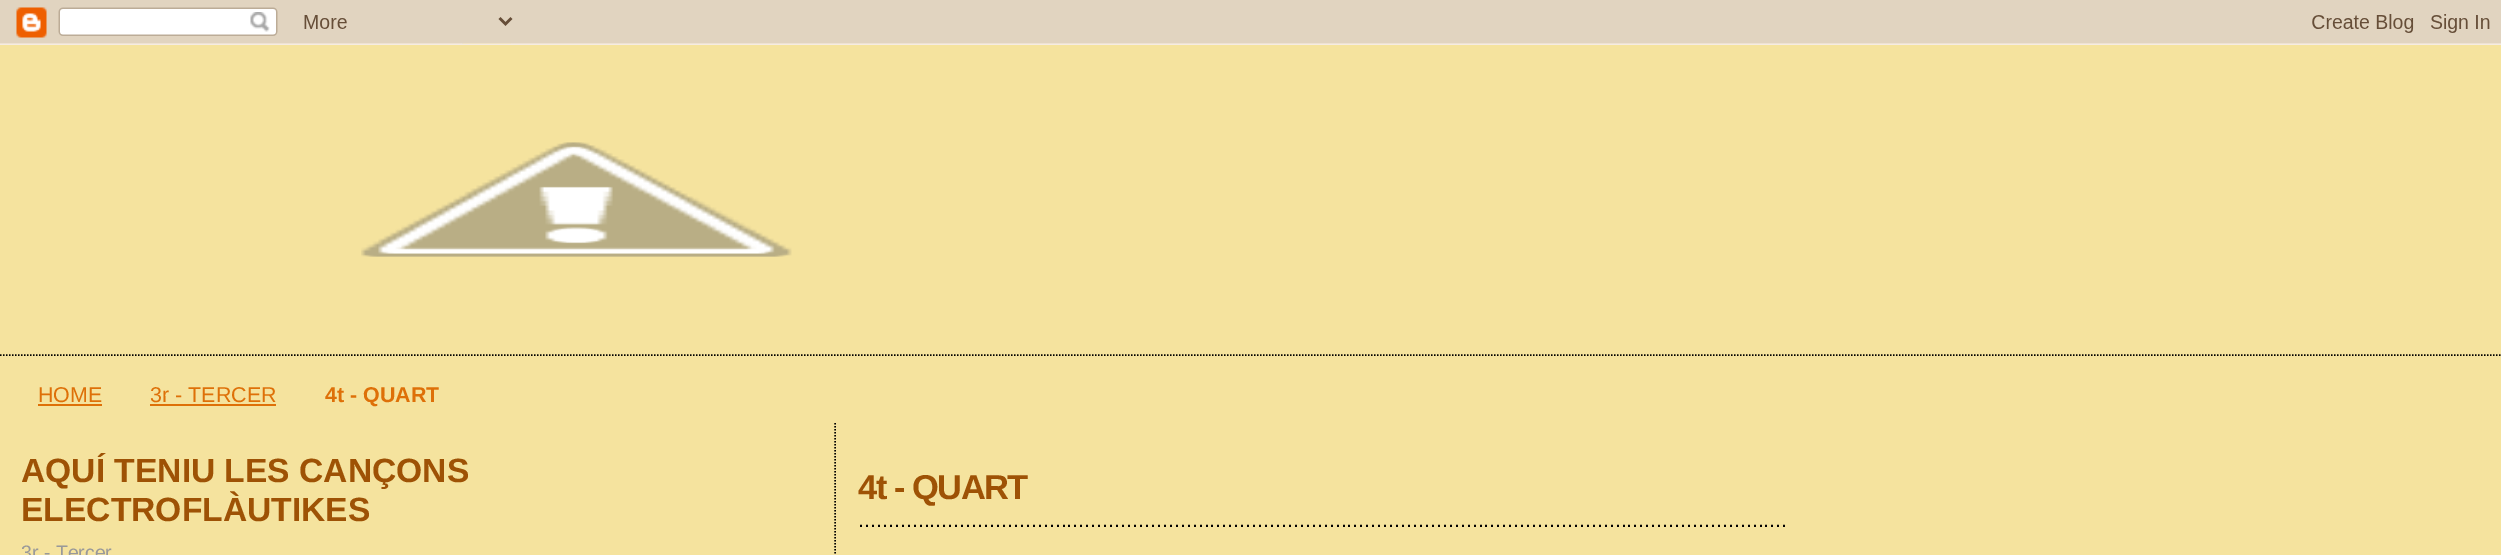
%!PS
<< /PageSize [2501 555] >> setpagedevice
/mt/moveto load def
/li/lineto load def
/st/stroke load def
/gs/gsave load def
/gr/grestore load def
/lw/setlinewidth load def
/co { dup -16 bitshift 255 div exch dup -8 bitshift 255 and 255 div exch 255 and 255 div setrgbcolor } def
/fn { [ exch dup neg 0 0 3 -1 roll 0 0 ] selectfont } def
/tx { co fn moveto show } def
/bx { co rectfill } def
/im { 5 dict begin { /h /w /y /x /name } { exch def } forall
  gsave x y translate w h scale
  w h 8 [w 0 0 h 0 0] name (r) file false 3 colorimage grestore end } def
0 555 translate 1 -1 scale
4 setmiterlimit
0 0 2501 555 16#F5E39E bx
(media/1.raw) 0 0 2501 45 im
16#000000 co
1.5 lw
[1.5 1.5] 0 setdash
0 355 mt 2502 355 li st
(media/2.raw) 361 142 431 115 im
38 404 64 2 16#DE7008 bx
150 404 126 2 16#DE7008 bx
16#000000 co
835 423 mt 835 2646 li st
(HOME) 38 402 /LiberationSans-Regular 21.45 16#DE7008 tx
(3r - TERCER) 150 402 /LiberationSans-Regular 21.45 16#DE7008 tx
(4t - QUART) 325 402 /LiberationSans-Bold 21.45 16#DE7008 tx
gs
21 453 764 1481 rectclip
(AQUÍ TENIU LES CANÇONS) 21 482 /LiberationSans-Bold 33.6 16#9E5205 tx
gr
(ELECTROFLÀUTIKES) 21 521 /LiberationSans-Bold 33.6 16#9E5205 tx
(3r - Tercer) 21 559 /LiberationSans-Regular 19.5 16#999999 tx
/LiberationSans-Bold 34.5 fn
16#9E5205 co
858 499 mt -1.5 0 (4t - QUART) ashow
(............................................................................................................................................................) 858 527 /LiberationSans-Regular 21.45 16#000000 tx
showpage
